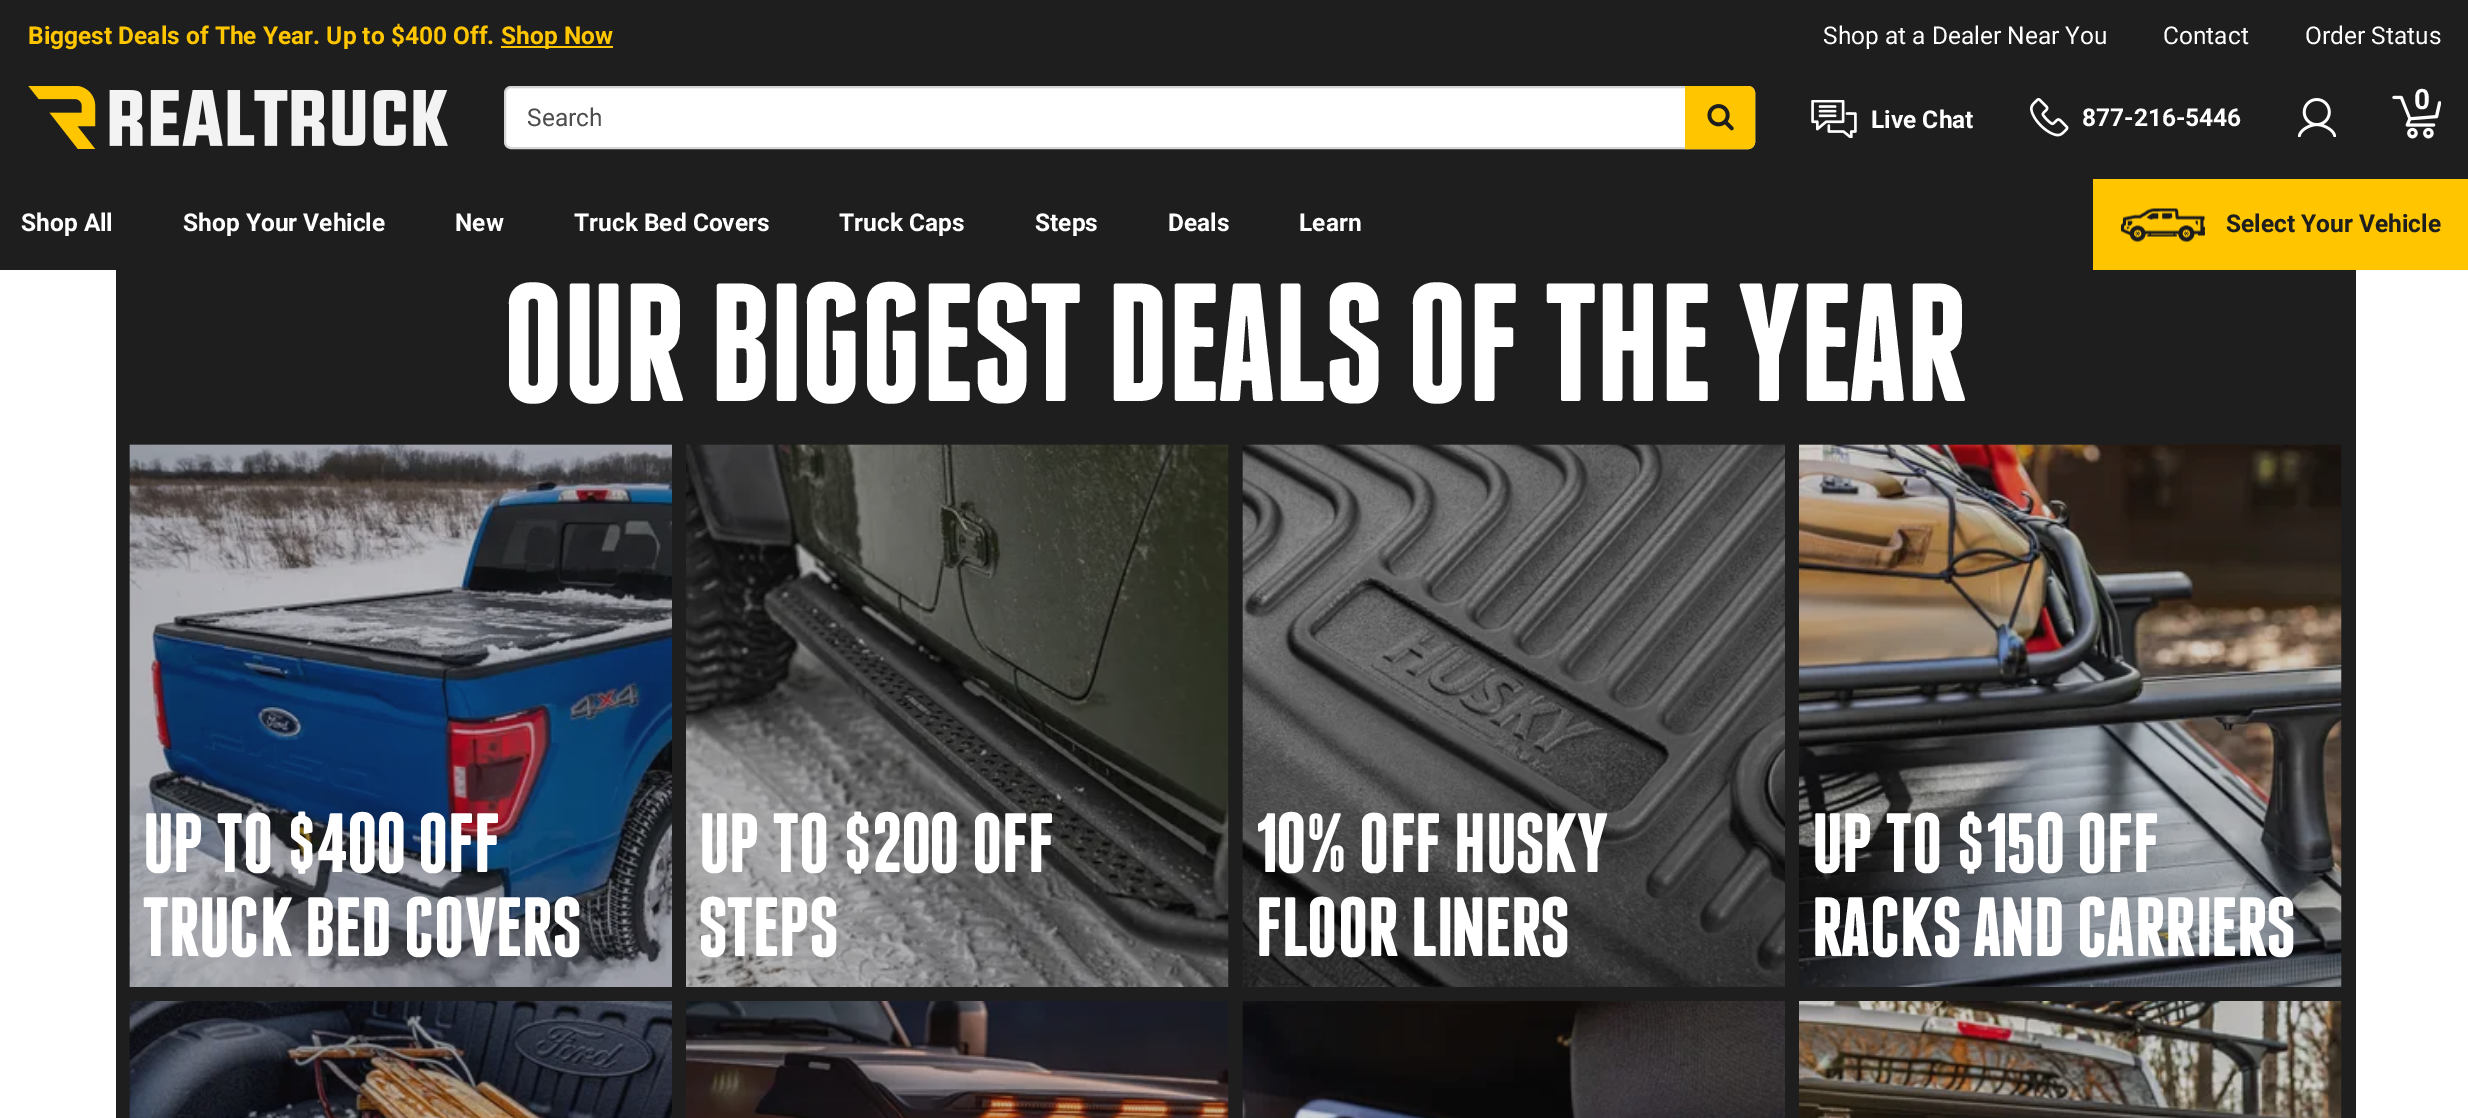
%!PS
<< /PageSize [2468 1118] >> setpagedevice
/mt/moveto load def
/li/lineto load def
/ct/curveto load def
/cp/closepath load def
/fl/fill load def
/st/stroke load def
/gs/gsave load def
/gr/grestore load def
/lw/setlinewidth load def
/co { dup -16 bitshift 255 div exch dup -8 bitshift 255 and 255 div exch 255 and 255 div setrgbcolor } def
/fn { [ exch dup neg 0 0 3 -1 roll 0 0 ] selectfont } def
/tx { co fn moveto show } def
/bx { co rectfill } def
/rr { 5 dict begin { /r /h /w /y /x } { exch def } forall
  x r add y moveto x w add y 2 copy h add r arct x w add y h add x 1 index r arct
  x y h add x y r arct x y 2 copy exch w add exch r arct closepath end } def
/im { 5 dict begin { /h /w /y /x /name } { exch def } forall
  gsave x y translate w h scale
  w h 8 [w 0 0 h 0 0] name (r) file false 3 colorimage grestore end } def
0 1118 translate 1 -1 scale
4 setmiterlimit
0 0 2468 1118 16#FFFFFF bx
0 0 2468 179 16#1E1E1E bx
501 46 112 2 16#FFC600 bx
(media/1.raw) 28 86 420 63 im
16#FFFFFF co
505 87 1249 61 6 rr gs fl gr
16#D5D5D5 co
2 lw
st
16#FFC600 co
1686 87 mt 1748 87 li 1751.5 87 1754 89.5 1754 93 ct 1754 142 li 1754 145.5 1751.5 148 1748 148 ct 1686 148 li cp gs fl gr
st
(media/2.raw) 1707 104 27 27 im
(media/3.raw) 1811 100 46 38 im
(media/4.raw) 2030 98 39 39 im
(media/5.raw) 2298 98 38 39 im
(media/6.raw) 2392 95 49 44 im
0 179 2093 91 16#1E1E1E bx
2093 179 375 91 16#FFC600 bx
(media/7.raw) 2121 208 84 34 im
116 270 2240 848 16#1E1E1E bx
(media/8.raw) 129 444 543 543 im
(media/9.raw) 686 444 543 543 im
(media/10.raw) 1242 444 543 543 im
(media/11.raw) 1799 444 543 543 im
(media/12.raw) 129 1001 543 117 im
(media/13.raw) 686 1001 543 117 im
(media/14.raw) 1242 1001 543 117 im
(media/15.raw) 1799 1001 543 117 im
(Biggest Deals of The Year. Up to $400 Off.) 28 44 /Roboto-Bold 24.5 16#FFC600 tx
(Shop Now) 501 44 /Roboto-Bold 24.5 16#FFC600 tx
(Shop at a Dealer Near You) 1823 44 /Roboto-Regular 24.5 16#FFFFFF tx
(Contact) 2163 44 /Roboto-Regular 24.5 16#FFFFFF tx
(Order Status) 2305 44 /Roboto-Regular 24.5 16#FFFFFF tx
(Search) 527 126 /Roboto-Regular 24.5 16#4D4D4D tx
(Live Chat) 1871 128 /Roboto-Bold 24.5 16#FFFFFF tx
(877-216-5446) 2082 126 /Roboto-Bold 24.5 16#FFFFFF tx
(0) 2414 109 /Roboto-Bold 28 16#FFFFFF tx
(Shop All) 21 231 /Roboto-Bold 24.5 16#FFFFFF tx
(Shop Your Vehicle) 183 231 /Roboto-Bold 24.5 16#FFFFFF tx
(New) 455 231 /Roboto-Bold 24.5 16#FFFFFF tx
(Truck Bed Covers) 574 231 /Roboto-Bold 24.5 16#FFFFFF tx
(Truck Caps) 839 231 /Roboto-Bold 24.5 16#FFFFFF tx
(Steps) 1035 231 /Roboto-Bold 24.5 16#FFFFFF tx
(Deals) 1168 231 /Roboto-Bold 24.5 16#FFFFFF tx
(Learn) 1299 231 /Roboto-Bold 24.5 16#FFFFFF tx
(Select Your Vehicle) 2226 232 /Roboto-Bold 24.5 16#1E1E1E tx
(OUR BIGGEST DEALS OF THE YEAR) 503 401 /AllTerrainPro-Regular 168 16#FFFFFF tx
(UP TO $400 OFF) 143 872 /AllTerrainPro-Regular 84 16#FFFFFF tx
(TRUCK BED COVERS) 143 956 /AllTerrainPro-Regular 84 16#FFFFFF tx
(UP TO $200 OFF) 699 872 /AllTerrainPro-Regular 84 16#FFFFFF tx
(STEPS) 699 956 /AllTerrainPro-Regular 84 16#FFFFFF tx
(10% OFF HUSKY) 1256 872 /AllTerrainPro-Regular 84 16#FFFFFF tx
(FLOOR LINERS) 1256 956 /AllTerrainPro-Regular 84 16#FFFFFF tx
(UP TO $150 OFF) 1812 872 /AllTerrainPro-Regular 84 16#FFFFFF tx
(RACKS AND CARRIERS) 1812 956 /AllTerrainPro-Regular 84 16#FFFFFF tx
showpage
